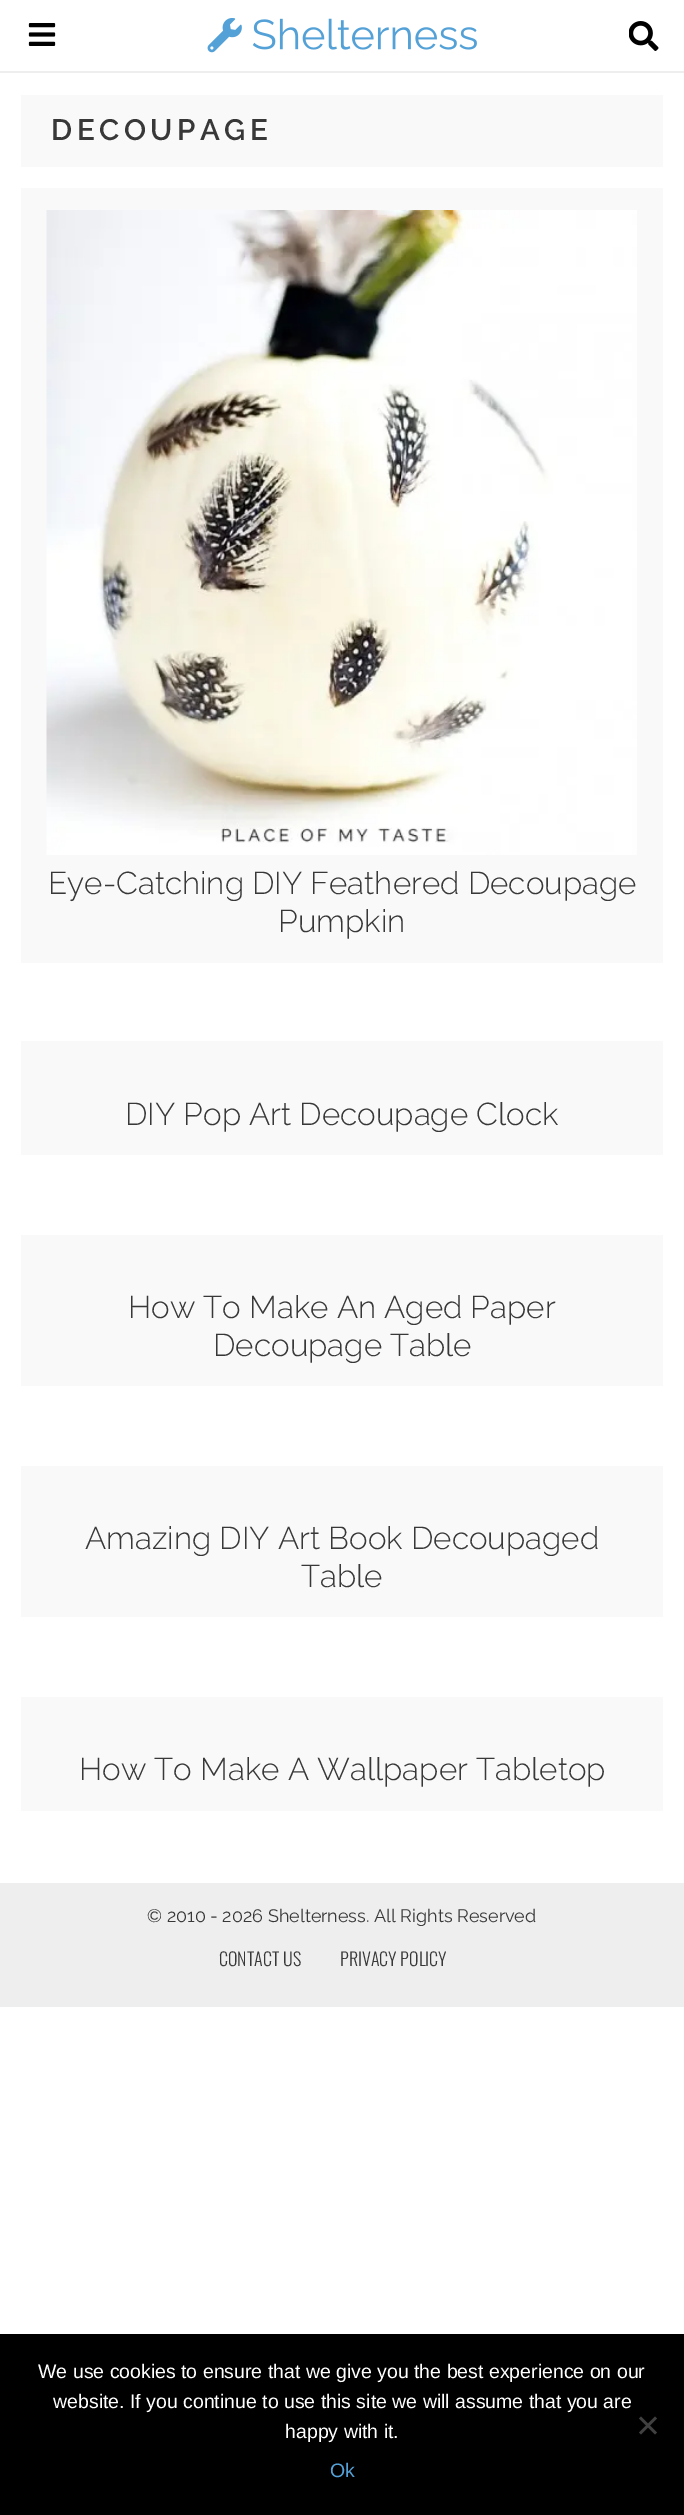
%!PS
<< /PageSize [684 2515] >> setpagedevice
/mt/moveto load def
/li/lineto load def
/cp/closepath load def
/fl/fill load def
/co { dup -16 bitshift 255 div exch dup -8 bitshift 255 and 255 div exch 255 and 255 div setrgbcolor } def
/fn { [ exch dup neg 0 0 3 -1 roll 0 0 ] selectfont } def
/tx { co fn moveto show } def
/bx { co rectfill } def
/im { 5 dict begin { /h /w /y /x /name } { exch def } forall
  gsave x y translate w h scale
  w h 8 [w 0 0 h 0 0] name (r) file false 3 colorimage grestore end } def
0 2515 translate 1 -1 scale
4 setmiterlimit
0 0 684 2515 16#FFFFFF bx
0 71 684 2 16#EEEEEE bx
(media/1.raw) 28 23 28 23 im
(media/2.raw) 207 18 270 35 im
(media/3.raw) 629 21 30 30 im
21 95 642 72 16#F9F9F9 bx
21 188 642 775 16#F9F9F9 bx
(media/4.raw) 46 210 591 645 im
21 1041 642 114 16#F9F9F9 bx
21 1235 642 151 16#F9F9F9 bx
21 1466 642 151 16#F9F9F9 bx
21 1697 642 114 16#F9F9F9 bx
0 1883 684 124 16#EEEEEE bx
0 2334 684 181 16#000000 bx
16#404040 co
655 2416.5 mt 657 2418.5 li 641 2434.5 li 639 2432.5 li cp fl
639 2418.5 mt 641 2416.5 li 657 2432.5 li 655 2434.5 li cp fl
/Raleway-Thin 29.5 fn
16#383838 co
51 140 mt 4.5 0 (DECOUPAGE) ashow
(Eye-Catching DIY Feathered Decoupage) 48 894 /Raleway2-Thin 31.5 16#383838 tx
(Pumpkin) 278 932 /Raleway2-Thin 31.5 16#383838 tx
(DIY Pop Art Decoupage Clock) 125 1125 /Raleway2-Thin 31.5 16#383838 tx
(How To Make An Aged Paper) 128 1318 /Raleway2-Thin 31.5 16#383838 tx
(Decoupage Table) 213 1356 /Raleway2-Thin 31.5 16#383838 tx
(Amazing DIY Art Book Decoupaged) 85 1549 /Raleway2-Thin 31.5 16#383838 tx
(Table) 301 1587 /Raleway2-Thin 31.5 16#383838 tx
(How To Make A Wallpaper Tabletop) 79 1780 /Raleway2-Thin 31.5 16#383838 tx
(© 2010 - 2026 Shelterness. All Rights Reserved) 147 1922 /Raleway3-Thin 18 16#383838 tx
(CONTACT US) 219 1966 /Oswald-Light 18 16#383838 tx
(PRIVACY POLICY) 340 1966 /Oswald-Light 18 16#383838 tx
(We use cookies to ensure that we give you the best experience on our) 38 2378 /LiberationSans-Regular 19.5 16#FFFFFF tx
(website. If you continue to use this site we will assume that you are) 53 2408 /LiberationSans-Regular 19.5 16#FFFFFF tx
(happy with it.) 285 2438 /LiberationSans-Regular 19.5 16#FFFFFF tx
(Ok) 330 2477 /LiberationSans-Regular 19.5 16#54A1D7 tx
showpage
